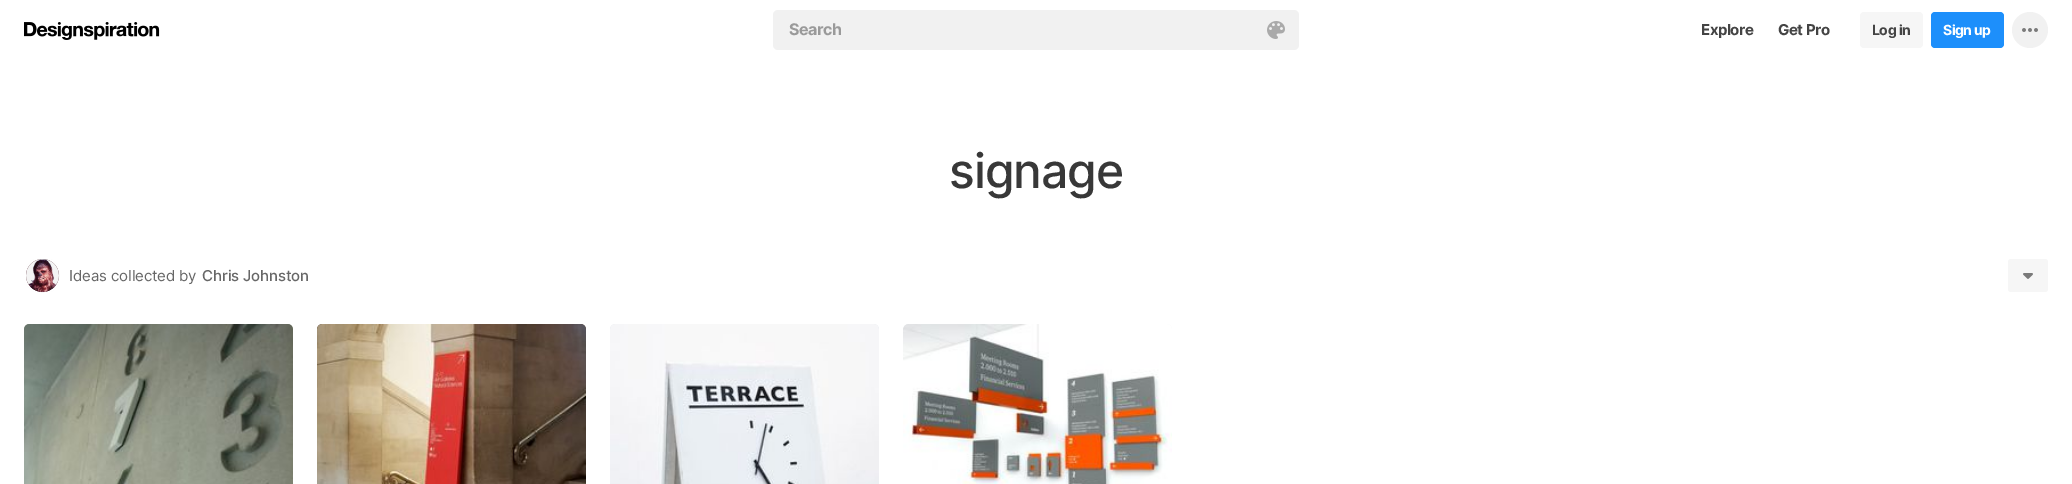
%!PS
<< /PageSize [2072 484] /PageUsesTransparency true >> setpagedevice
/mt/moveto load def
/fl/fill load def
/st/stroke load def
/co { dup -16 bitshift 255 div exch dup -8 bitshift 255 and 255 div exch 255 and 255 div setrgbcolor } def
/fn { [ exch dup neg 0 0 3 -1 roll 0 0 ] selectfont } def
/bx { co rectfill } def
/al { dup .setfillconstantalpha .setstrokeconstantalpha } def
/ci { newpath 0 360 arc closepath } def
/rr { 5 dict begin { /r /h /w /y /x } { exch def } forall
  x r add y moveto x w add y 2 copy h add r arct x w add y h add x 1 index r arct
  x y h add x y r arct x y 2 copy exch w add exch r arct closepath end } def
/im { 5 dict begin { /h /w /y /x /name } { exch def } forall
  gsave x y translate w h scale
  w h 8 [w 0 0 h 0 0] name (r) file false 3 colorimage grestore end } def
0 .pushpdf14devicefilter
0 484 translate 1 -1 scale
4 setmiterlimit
0 0 2072 484 16#FFFFFF bx
(media/1.raw) 24 22 136 18 im
16#F1F1F1 co
773 10 526 40 5 rr fl
(media/2.raw) 1267 21 18 18 im
16#F6F6F6 co
1860 12 63 36 4 rr fl
16#1D8FFB co
1931 12 73 36 4 rr fl
16#F1F1F1 co
2030 30 18 ci fl
(media/3.raw) 2022 28 16 4 im
0.1 al
16#000000 co
42.5 275.5 16 ci st
1 al
(media/4.raw) 26 259 33 33 im
16#F6F6F6 co
2008 259 40 33 3 rr fl
(media/5.raw) 2023 273 10 6 im
16#8D9485 co
24 324 269 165 5 rr fl
(media/6.raw) 24 324 269 160 im
16#5F4C3E co
317 324 269 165 5 rr fl
(media/7.raw) 317 324 269 160 im
16#E7EBEF co
610 324 269 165 5 rr fl
(media/8.raw) 610 324 269 160 im
16#F9FAFA co
903 324 269 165 5 rr fl
(media/9.raw) 903 324 269 160 im
/Inter-Bold 16 fn
16#9A9A9A co
789 35 mt -.5 0 (Search) ashow
/Inter-Bold 15 fn
16#444444 co
1701 35 mt -.5 0 (Explore) ashow
1778 35 mt -.5 0 (Get Pro) ashow
/Inter-Bold 14 fn
1872 35 mt -.5 0 (Log in) ashow
16#FFFFFF co
1943 35 mt -.5 0 (Sign up) ashow
/Inter-Medium 48 fn
16#383838 co
949 188 mt -1 0 (signage) ashow
/Inter-Regular 15 fn
16#676767 co
69 281 mt -.1 0 (Ideas collected by) ashow
/Inter-Medium 15 fn
202 281 mt -.1 0 (Chris Johnston) ashow
.poppdf14devicefilter showpage
